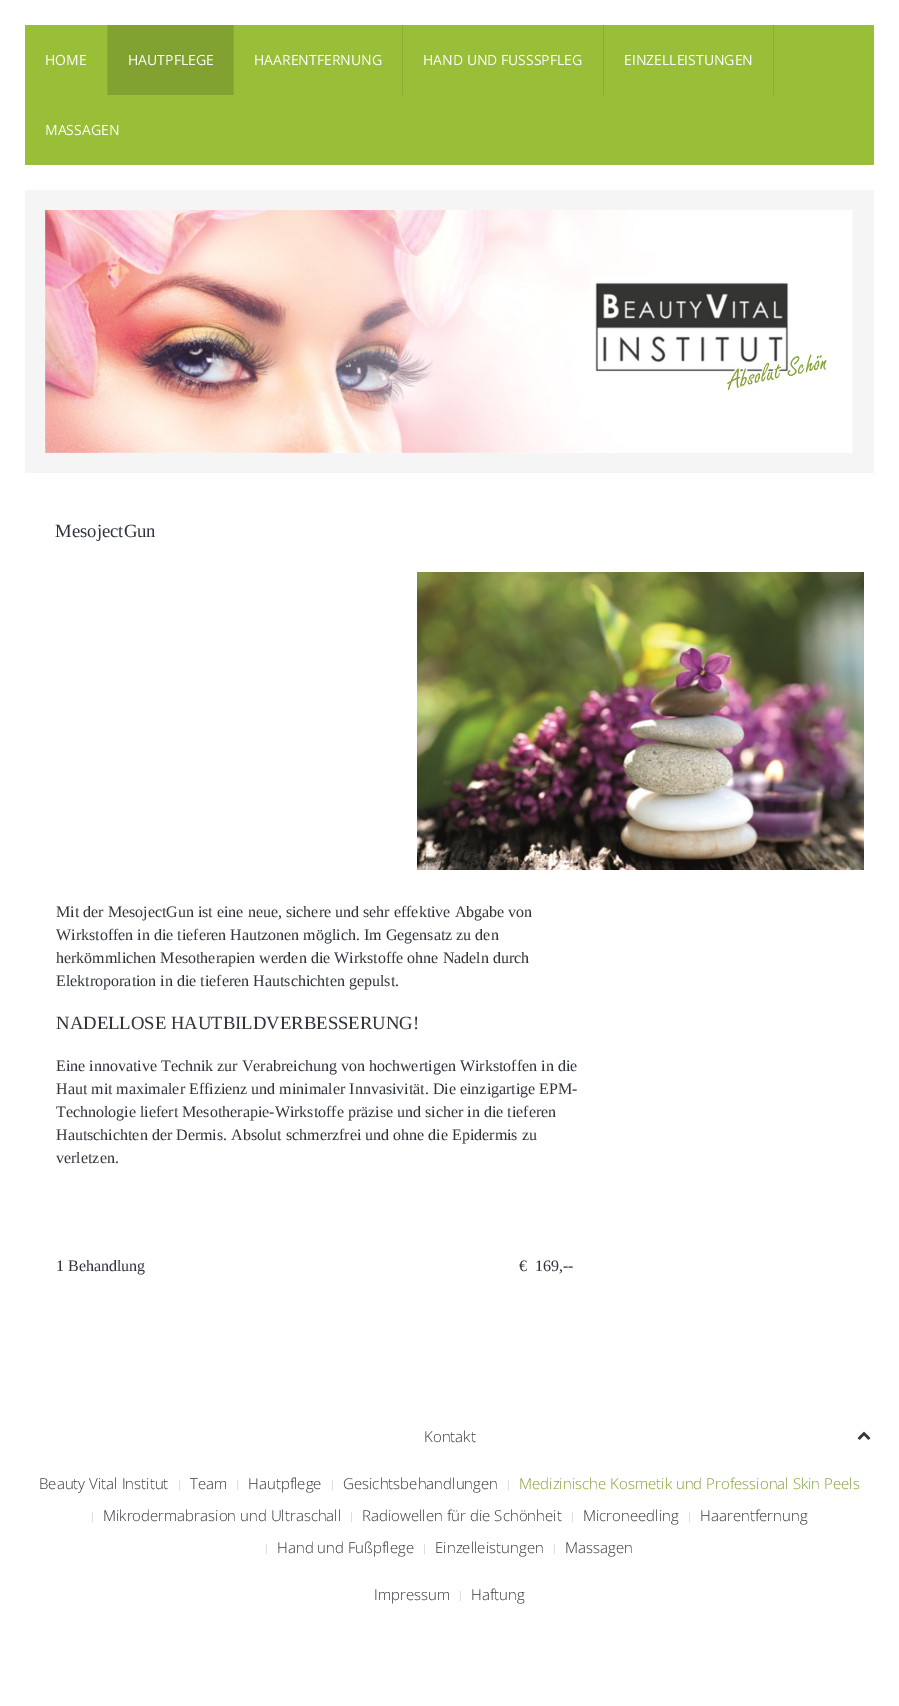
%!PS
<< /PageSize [899 1706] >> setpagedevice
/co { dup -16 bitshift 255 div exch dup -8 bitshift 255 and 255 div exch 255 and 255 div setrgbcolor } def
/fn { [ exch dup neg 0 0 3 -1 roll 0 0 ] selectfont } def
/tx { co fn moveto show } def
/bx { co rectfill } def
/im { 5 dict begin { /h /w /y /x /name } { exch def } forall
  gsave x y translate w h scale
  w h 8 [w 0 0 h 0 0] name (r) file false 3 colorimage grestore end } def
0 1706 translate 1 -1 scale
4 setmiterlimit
0 0 899 1706 16#FFFFFF bx
25 25 849 140 16#99BF38 bx
107 25 1 70 16#8BAB38 bx
108 25 125 70 16#81A131 bx
233 25 1 70 16#8BAB38 bx
402 25 1 70 16#8BAB38 bx
603 25 1 70 16#8BAB38 bx
773 25 1 70 16#8BAB38 bx
25 190 849 283 16#F5F5F5 bx
(media/1.raw) 45 210 808 243 im
(media/2.raw) 417 572 447 298 im
(media/3.raw) 857 1431 14 9 im
179 1480 1 10 16#DDDDDD bx
237 1480 1 10 16#DDDDDD bx
332 1480 1 10 16#DDDDDD bx
508 1480 1 10 16#DDDDDD bx
92 1512 1 10 16#DDDDDD bx
351 1512 1 10 16#DDDDDD bx
572 1512 1 10 16#DDDDDD bx
689 1512 1 10 16#DDDDDD bx
266 1544 1 10 16#DDDDDD bx
424 1544 1 10 16#DDDDDD bx
554 1544 1 10 16#DDDDDD bx
460 1591 1 10 16#DDDDDD bx
(HOME) 45 65 /OpenSans-Regular 14 16#FFFFFF tx
(HAUTPFLEGE) 128 65 /OpenSans-Regular 14 16#FFFFFF tx
(HAARENTFERNUNG) 254 65 /OpenSans-Regular 14 16#FFFFFF tx
(HAND UND FUSSSPFLEG) 423 65 /OpenSans-Regular 14 16#FFFFFF tx
(EINZELLEISTUNGEN) 624 65 /OpenSans-Regular 14 16#FFFFFF tx
(MASSAGEN) 45 135 /OpenSans-Regular 14 16#FFFFFF tx
(MesojectGun) 55 537 /LiberationSerif-Regular 18.7 16#31353D tx
(Mit der MesojectGun ist eine neue, sichere und sehr effektive Abgabe von) 56 917 /LiberationSerif-Regular 16 16#31353D tx
(Wirkstoffen in die tieferen Hautzonen möglich. Im Gegensatz zu den) 56 940 /LiberationSerif-Regular 16 16#31353D tx
(herkömmlichen Mesotherapien werden die Wirkstoffe ohne Nadeln durch) 56 963 /LiberationSerif-Regular 16 16#31353D tx
(Elektroporation in die tieferen Hautschichten gepulst.) 56 986 /LiberationSerif-Regular 16 16#31353D tx
(NADELLOSE HAUTBILDVERBESSERUNG!) 56 1029 /LiberationSerif-Regular 18.7 16#31353D tx
(Eine innovative Technik zur Verabreichung von hochwertigen Wirkstoffen in die) 56 1071 /LiberationSerif-Regular 16 16#31353D tx
(Haut mit maximaler Effizienz und minimaler Innvasivität. Die einzigartige EPM-) 56 1094 /LiberationSerif-Regular 16 16#31353D tx
(Technologie liefert Mesotherapie-Wirkstoffe präzise und sicher in die tieferen) 56 1117 /LiberationSerif-Regular 16 16#31353D tx
(Hautschichten der Dermis. Absolut schmerzfrei und ohne die Epidermis zu) 56 1140 /LiberationSerif-Regular 16 16#31353D tx
(verletzen.) 56 1163 /LiberationSerif-Regular 16 16#31353D tx
(1 Behandlung) 56 1271 /LiberationSerif-Regular 16 16#31353D tx
(€  169,--) 519 1271 /LiberationSerif-Regular 16 16#31353D tx
(Kontakt) 424 1442 /OpenSans-Light 15 16#31353D tx
(Beauty Vital Institut) 39 1489 /OpenSans-Light 15 16#31353D tx
(Team) 190 1489 /OpenSans-Light 15 16#31353D tx
(Hautpflege) 248 1489 /OpenSans-Light 15 16#31353D tx
(Gesichtsbehandlungen) 343 1489 /OpenSans-Light 15 16#31353D tx
(Medizinische Kosmetik und Professional Skin Peels) 519 1489 /OpenSans-Light 15 16#81A131 tx
(Mikrodermabrasion und Ultraschall) 103 1521 /OpenSans-Light 15 16#31353D tx
(Radiowellen für die Schönheit) 362 1521 /OpenSans-Light 15 16#31353D tx
(Microneedling) 583 1521 /OpenSans-Light 15 16#31353D tx
(Haarentfernung) 700 1521 /OpenSans-Light 15 16#31353D tx
(Hand und Fußpflege) 277 1553 /OpenSans-Light 15 16#31353D tx
(Einzelleistungen) 435 1553 /OpenSans-Light 15 16#31353D tx
(Massagen) 565 1553 /OpenSans-Light 15 16#31353D tx
(Impressum) 374 1600 /OpenSans-Light 15 16#31353D tx
(Haftung) 471 1600 /OpenSans-Light 15 16#31353D tx
showpage
